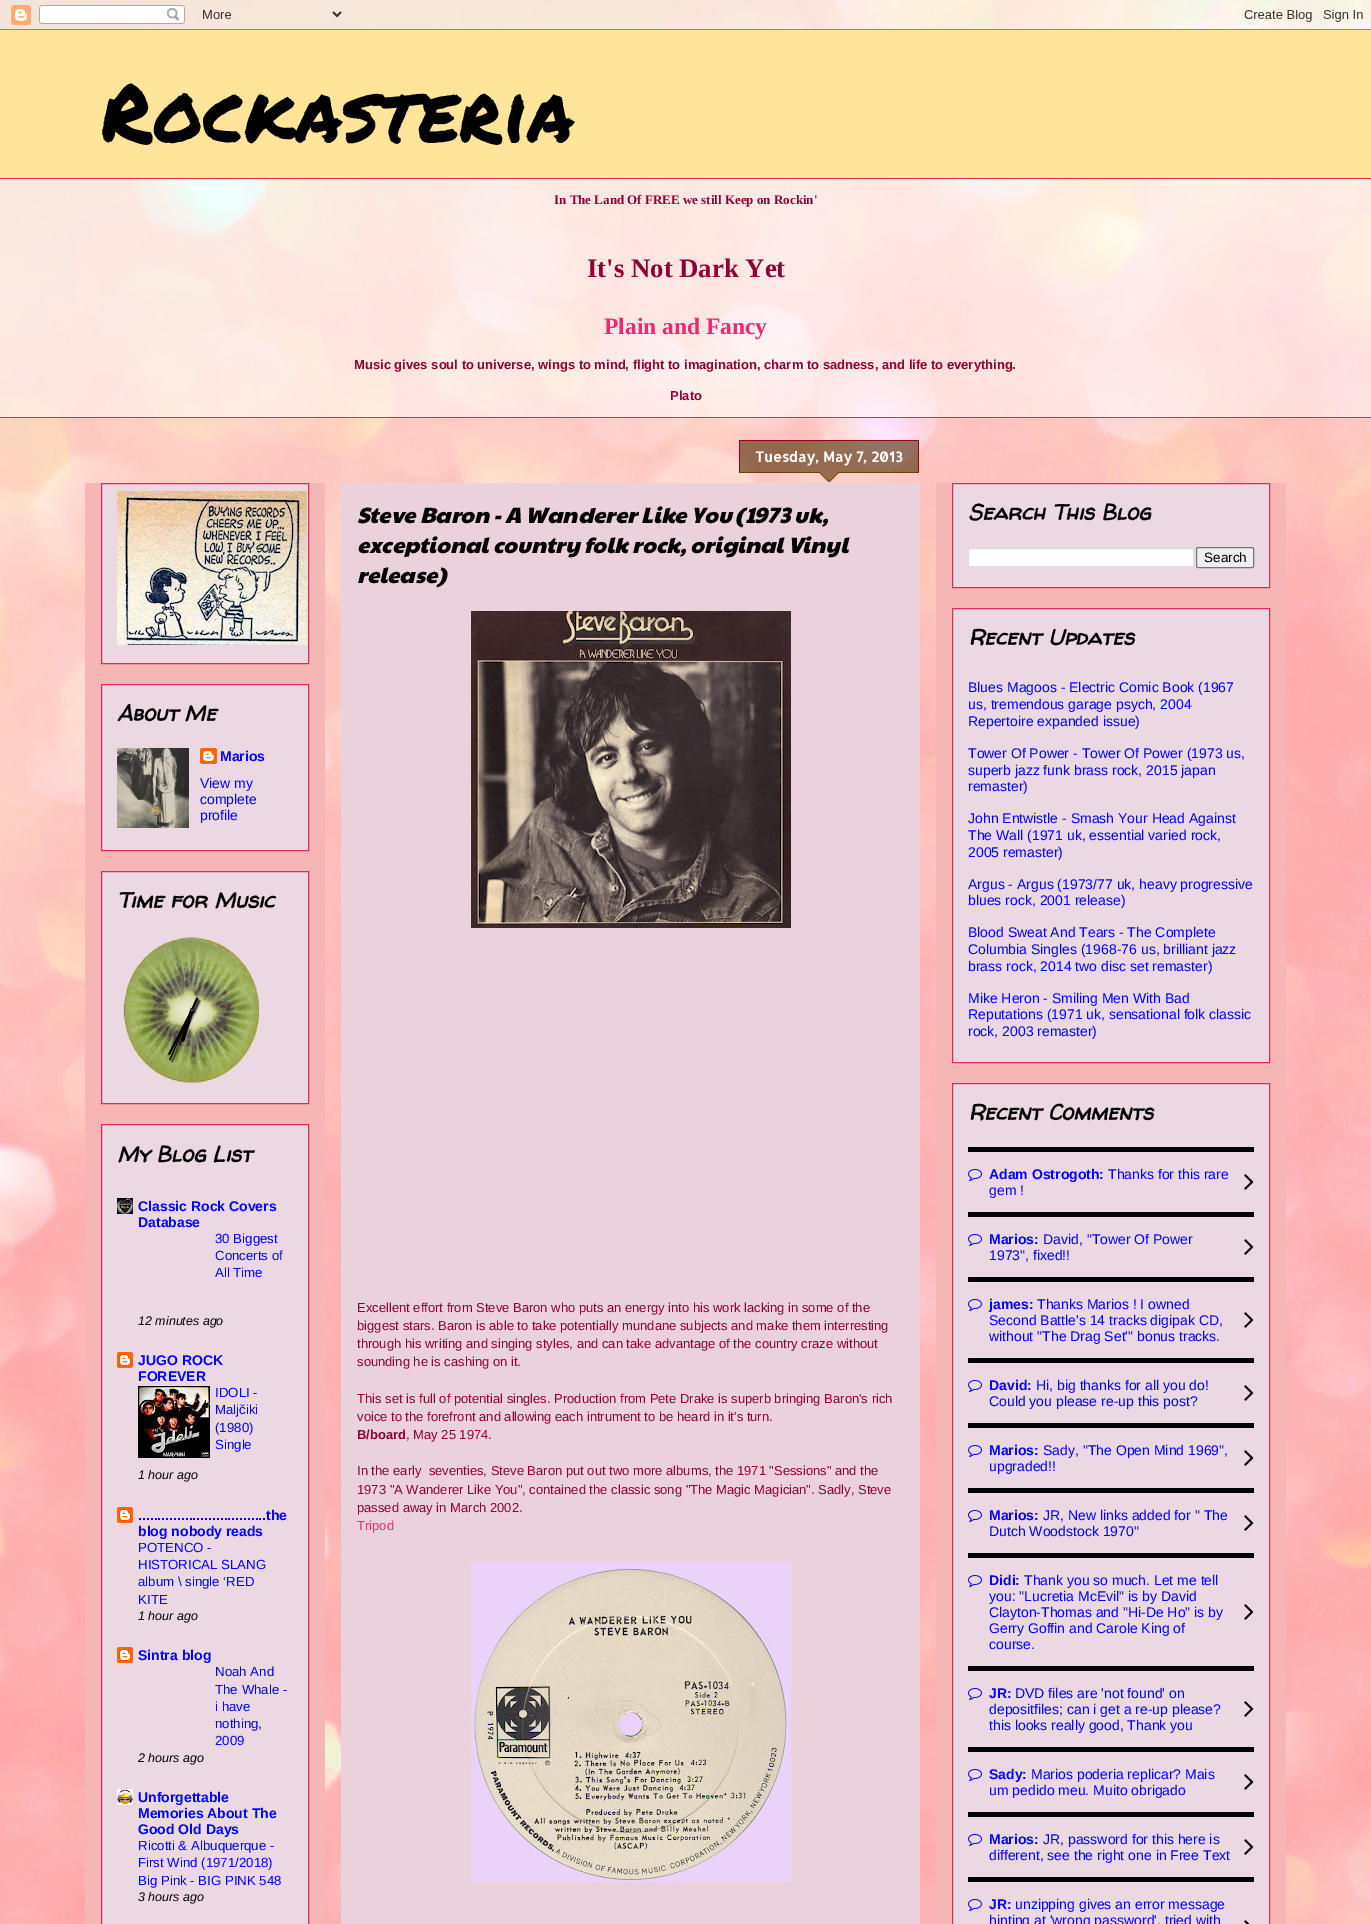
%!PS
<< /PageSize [1371 1924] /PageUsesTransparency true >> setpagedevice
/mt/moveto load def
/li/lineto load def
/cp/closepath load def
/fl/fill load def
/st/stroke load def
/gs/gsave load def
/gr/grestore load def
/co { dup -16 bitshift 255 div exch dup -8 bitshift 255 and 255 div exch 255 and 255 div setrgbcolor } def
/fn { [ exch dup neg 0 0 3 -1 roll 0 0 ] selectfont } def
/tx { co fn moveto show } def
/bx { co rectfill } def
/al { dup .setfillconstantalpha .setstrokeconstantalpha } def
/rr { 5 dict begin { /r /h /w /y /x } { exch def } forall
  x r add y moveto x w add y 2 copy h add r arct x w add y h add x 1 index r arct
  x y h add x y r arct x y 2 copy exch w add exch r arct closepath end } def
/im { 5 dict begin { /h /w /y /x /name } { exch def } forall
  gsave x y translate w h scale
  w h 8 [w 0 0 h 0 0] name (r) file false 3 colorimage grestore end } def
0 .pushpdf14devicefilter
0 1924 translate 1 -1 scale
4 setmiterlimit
0 0 1371 1924 16#FFFFFF bx
(media/1.raw) 0 0 1371 1924 im
(media/2.raw) 0 0 1371 30 im
0 30 1371 148 16#FFE599 bx
0.49 al
0 179 1371 238 16#FFFFFF bx
1 al
0 178 1371 1 16#DE2B5B bx
0 417 1371 1 16#DE2B5B bx
85 483 240 1441 16#F6B6B6 bx
16#EBD8E2 co
101.5 483.5 mt 308.5 483.5 li 308.5 663.5 li 101.5 663.5 li cp gs fl gr
16#DE2B5B co
st
(media/3.raw) 117 491 190 154 im
16#EBD8E2 co
101.5 684.5 mt 308.5 684.5 li 308.5 850.5 li 101.5 850.5 li cp gs fl gr
16#DE2B5B co
st
(media/4.raw) 117 748 72 80 im
(media/5.raw) 200 748 17 16 im
16#EBD8E2 co
101.5 871.5 mt 308.5 871.5 li 308.5 1103.5 li 101.5 1103.5 li cp gs fl gr
16#DE2B5B co
st
(media/6.raw) 123 937 136 146 im
16#EBD8E2 co
101.5 1124.5 mt 308.5 1124.5 li 308.5 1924.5 li 101.5 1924.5 li cp gs fl gr
16#DE2B5B co
st
(media/7.raw) 117 1198 16 16 im
(media/8.raw) 117 1352 16 16 im
(media/9.raw) 138 1386 72 72 im
(media/8.raw) 117 1507 16 16 im
(media/8.raw) 117 1647 16 16 im
(media/10.raw) 117 1789 16 16 im
341 483 579 1441 16#EAD1DC bx
(media/11.raw) 739 441 180 41 im
739 440 180 1 16#960021 bx
918 441 1 31 16#960021 bx
739 441 1 31 16#960021 bx
(media/12.raw) 471 611 320 317 im
(media/13.raw) 471 1562 320 320 im
936 483 350 1441 16#F6B6B6 bx
16#EBD8E2 co
952.5 483.5 mt 1269.5 483.5 li 1269.5 587.5 li 952.5 587.5 li cp gs fl gr
16#DE2B5B co
st
16#FFFFFF co
968.5 548.5 mt 1193.5 548.5 li 1193.5 566.5 li 968.5 566.5 li cp gs fl gr
16#DDDDDD co
st
16#EFEFEF co
1196.5 547.5 57 20 1.5 rr gs fl gr
16#767676 co
st
16#EBD8E2 co
952.5 608.5 mt 1269.5 608.5 li 1269.5 1062.5 li 952.5 1062.5 li cp gs fl gr
16#DE2B5B co
st
16#EBD8E2 co
952.5 1083.5 mt 1269.5 1083.5 li 1269.5 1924.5 li 952.5 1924.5 li cp gs fl gr
16#DE2B5B co
st
968 1147 286 5 16#000000 bx
(media/14.raw) 968 1169 14 12 im
(media/15.raw) 1244 1174 10 16 im
968 1212 286 5 16#000000 bx
(media/14.raw) 968 1234 14 12 im
(media/15.raw) 1244 1239 10 16 im
968 1277 286 5 16#000000 bx
(media/14.raw) 968 1299 14 12 im
(media/15.raw) 1244 1312 10 16 im
968 1358 286 5 16#000000 bx
(media/14.raw) 968 1380 14 12 im
(media/15.raw) 1244 1385 10 16 im
968 1423 286 5 16#000000 bx
(media/14.raw) 968 1445 14 12 im
(media/15.raw) 1244 1450 10 16 im
968 1488 286 5 16#000000 bx
(media/14.raw) 968 1510 14 12 im
(media/15.raw) 1244 1515 10 16 im
968 1553 286 5 16#000000 bx
(media/14.raw) 968 1575 14 12 im
(media/15.raw) 1244 1604 10 16 im
968 1666 286 5 16#000000 bx
(media/14.raw) 968 1688 14 12 im
(media/15.raw) 1244 1701 10 16 im
968 1747 286 5 16#000000 bx
(media/14.raw) 968 1769 14 12 im
(media/15.raw) 1244 1774 10 16 im
968 1812 286 5 16#000000 bx
(media/14.raw) 968 1834 14 12 im
(media/15.raw) 1244 1839 10 16 im
968 1877 286 5 16#000000 bx
(media/14.raw) 968 1899 14 12 im
(media/16.raw) 1244 1920 6 4 im
(Rockasteria) 101 142 /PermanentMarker-Regular 80 16#000000 tx
(In The Land Of FREE we still Keep on Rockin') 554 204 /LiberationSerif-Bold 13 16#8D0034 tx
(It's Not Dark Yet) 587 277 /LiberationSerif-Bold 26.75 16#8D0034 tx
(Plain and Fancy) 604 334 /LiberationSerif-Bold 23.5 16#F42672 tx
(Music gives soul to universe, wings to mind, flight to imagination, charm to sadness, and life to everything.) 354 369 /LiberationSans-Bold 13 16#8D0034 tx
(Plato) 670 400 /LiberationSans-Bold 13 16#8D0034 tx
(About Me) 117 721 /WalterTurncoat-BoldItalic 22 16#000000 tx
(Marios) 220 761 /LiberationSans-Bold 14 16#0000FF tx
(View my) 200 788 /LiberationSans-Regular 14 16#0000FF tx
(complete) 200 804 /LiberationSans-Regular 14 16#0000FF tx
(profile) 200 820 /LiberationSans-Regular 14 16#0000FF tx
(Time for Music) 117 908 /WalterTurncoat-BoldItalic 22 16#000000 tx
(My Blog List) 117 1162 /WalterTurncoat-BoldItalic 22 16#000000 tx
(Classic Rock Covers) 138 1211 /LiberationSans-Bold 14 16#0000FF tx
(Database) 138 1227 /LiberationSans-Bold 14 16#0000FF tx
(30 Biggest) 215 1243 /LiberationSans-Regular 13.25 16#0000FF tx
(Concerts of) 215 1260 /LiberationSans-Regular 13.25 16#0000FF tx
(All Time) 215 1277 /LiberationSans-Regular 13.25 16#0000FF tx
(12 minutes ago) 138 1325 /LiberationSans-Italic 12.5 16#000000 tx
(JUGO ROCK) 138 1365 /LiberationSans-Bold 14 16#0000FF tx
(FOREVER) 138 1381 /LiberationSans-Bold 14 16#0000FF tx
(IDOLI -) 215 1397 /LiberationSans-Regular 13.25 16#0000FF tx
(Maljčiki) 215 1414 /LiberationSans-Regular 13.25 16#0000FF tx
(\(1980\)) 215 1432 /LiberationSans-Regular 13.25 16#0000FF tx
(Single) 215 1449 /LiberationSans-Regular 13.25 16#0000FF tx
(1 hour ago) 138 1479 /LiberationSans-Italic 12.5 16#000000 tx
(.................................the) 138 1520 /LiberationSans-Bold 14 16#0000FF tx
(blog nobody reads) 138 1536 /LiberationSans-Bold 14 16#0000FF tx
(POTENCO -) 138 1552 /LiberationSans-Regular 13.25 16#0000FF tx
(HISTORICAL SLANG) 138 1569 /LiberationSans-Regular 13.25 16#0000FF tx
(album \\ single ‘RED) 138 1586 /LiberationSans-Regular 13.25 16#0000FF tx
(KITE) 138 1604 /LiberationSans-Regular 13.25 16#0000FF tx
(1 hour ago) 138 1620 /LiberationSans-Italic 12.5 16#000000 tx
(Sintra blog) 138 1660 /LiberationSans-Bold 14 16#0000FF tx
(Noah And) 215 1676 /LiberationSans-Regular 13.25 16#0000FF tx
(The Whale -) 215 1694 /LiberationSans-Regular 13.25 16#0000FF tx
(i have) 215 1711 /LiberationSans-Regular 13.25 16#0000FF tx
(nothing,) 215 1728 /LiberationSans-Regular 13.25 16#0000FF tx
(2009) 215 1745 /LiberationSans-Regular 13.25 16#0000FF tx
(2 hours ago) 138 1762 /LiberationSans-Italic 12.5 16#000000 tx
(Unforgettable) 138 1802 /LiberationSans-Bold 14 16#0000FF tx
(Memories About The) 138 1818 /LiberationSans-Bold 14 16#0000FF tx
(Good Old Days) 138 1834 /LiberationSans-Bold 14 16#0000FF tx
(Ricotti & Albuquerque -) 138 1850 /LiberationSans-Regular 13.25 16#0000FF tx
(First Wind \(1971/2018\)) 138 1867 /LiberationSans-Regular 13.25 16#0000FF tx
(Big Pink - BIG PINK 548) 138 1885 /LiberationSans-Regular 13.25 16#0000FF tx
(3 hours ago) 138 1901 /LiberationSans-Italic 12.5 16#000000 tx
(Tuesday, May 7, 2013) 755 462 /Allerta-Bold 14 16#FFFFFF tx
(Steve Baron - A Wanderer Like You \(1973 uk,) 357 523 /PaytoneOne-Italic 22 16#000000 tx
(exceptional country folk rock, original Vinyl) 357 553 /PaytoneOne-Italic 22 16#000000 tx
(release\)) 357 583 /PaytoneOne-Italic 22 16#000000 tx
(Excellent effort from Steve Baron who puts an energy into his work lacking in some of the) 357 1312 /LiberationSans-Regular 13 16#8D0034 tx
(biggest stars. Baron is able to take potentially mundane subjects and make them interresting) 357 1330 /LiberationSans-Regular 13 16#8D0034 tx
(through his writing and singing styles, and can take advantage of the country craze without) 357 1348 /LiberationSans-Regular 13 16#8D0034 tx
(sounding he is cashing on it.) 357 1366 /LiberationSans-Regular 13 16#8D0034 tx
(This set is full of potential singles. Production from Pete Drake is superb bringing Baron's rich) 357 1403 /LiberationSans-Regular 13 16#8D0034 tx
(voice to the forefront and allowing each intrument to be heard in it's turn.) 357 1421 /LiberationSans-Regular 13 16#8D0034 tx
(B/board) 357 1439 /LiberationSans-Bold 13 16#8D0034 tx
(, May 25 1974.) 406 1439 /LiberationSans-Regular 13 16#8D0034 tx
(In the early  seventies, Steve Baron put out two more albums, the 1971 "Sessions" and the) 357 1475 /LiberationSans-Regular 13 16#8D0034 tx
(1973 "A Wanderer Like You", contained the classic song "The Magic Magician". Sadly, Steve) 357 1494 /LiberationSans-Regular 13 16#8D0034 tx
(passed away in March 2002.) 357 1512 /LiberationSans-Regular 13 16#8D0034 tx
(Tripod) 357 1530 /LiberationSans-Regular 13 16#F42672 tx
(Search This Blog) 968 520 /WalterTurncoat-BoldItalic 22 16#000000 tx
(Search) 1204 562 /LiberationSans-Regular 13.5 16#000000 tx
(Recent Updates) 968 645 /WalterTurncoat-BoldItalic 22 16#000000 tx
(Blues Magoos - Electric Comic Book \(1967) 968 692 /LiberationSans-Regular 14 16#0000FF tx
(us, tremendous garage psych, 2004) 968 709 /LiberationSans-Regular 14 16#0000FF tx
(Repertoire expanded issue\)) 968 726 /LiberationSans-Regular 14 16#0000FF tx
(Tower Of Power - Tower Of Power \(1973 us,) 968 758 /LiberationSans-Regular 14 16#0000FF tx
(superb jazz funk brass rock, 2015 japan) 968 775 /LiberationSans-Regular 14 16#0000FF tx
(remaster\)) 968 791 /LiberationSans-Regular 14 16#0000FF tx
(John Entwistle - Smash Your Head Against) 968 823 /LiberationSans-Regular 14 16#0000FF tx
(The Wall \(1971 uk, essential varied rock,) 968 840 /LiberationSans-Regular 14 16#0000FF tx
(2005 remaster\)) 968 857 /LiberationSans-Regular 14 16#0000FF tx
(Argus - Argus \(1973/77 uk, heavy progressive) 968 889 /LiberationSans-Regular 14 16#0000FF tx
(blues rock, 2001 release\)) 968 905 /LiberationSans-Regular 14 16#0000FF tx
(Blood Sweat And Tears - The Complete) 968 937 /LiberationSans-Regular 14 16#0000FF tx
(Columbia Singles \(1968-76 us, brilliant jazz) 968 954 /LiberationSans-Regular 14 16#0000FF tx
(brass rock, 2014 two disc set remaster\)) 968 971 /LiberationSans-Regular 14 16#0000FF tx
(Mike Heron - Smiling Men With Bad) 968 1003 /LiberationSans-Regular 14 16#0000FF tx
(Reputations \(1971 uk, sensational folk classic) 968 1019 /LiberationSans-Regular 14 16#0000FF tx
(rock, 2003 remaster\)) 968 1036 /LiberationSans-Regular 14 16#0000FF tx
(Recent Comments) 968 1120 /WalterTurncoat-BoldItalic 22 16#000000 tx
(Adam Ostrogoth:) 989 1179 /LiberationSans-Bold 14 16#0000FF tx
(Thanks for this rare) 1108 1179 /LiberationSans-Regular 14 16#0000FF tx
(gem !) 989 1195 /LiberationSans-Regular 14 16#0000FF tx
(Marios:) 989 1244 /LiberationSans-Bold 14 16#0000FF tx
(David, "Tower Of Power) 1043 1244 /LiberationSans-Regular 14 16#0000FF tx
(1973", fixed!!) 989 1260 /LiberationSans-Regular 14 16#0000FF tx
(james:) 989 1309 /LiberationSans-Bold 14 16#0000FF tx
(Thanks Marios ! I owned) 1037 1309 /LiberationSans-Regular 14 16#0000FF tx
(Second Battle's 14 tracks digipak CD,) 989 1325 /LiberationSans-Regular 14 16#0000FF tx
(without "The Drag Set'" bonus tracks.) 989 1341 /LiberationSans-Regular 14 16#0000FF tx
(David:) 989 1390 /LiberationSans-Bold 14 16#0000FF tx
(Hi, big thanks for all you do!) 1036 1390 /LiberationSans-Regular 14 16#0000FF tx
(Could you please re-up this post?) 989 1406 /LiberationSans-Regular 14 16#0000FF tx
(Marios:) 989 1455 /LiberationSans-Bold 14 16#0000FF tx
(Sady, "The Open Mind 1969",) 1043 1455 /LiberationSans-Regular 14 16#0000FF tx
(upgraded!!) 989 1471 /LiberationSans-Regular 14 16#0000FF tx
(Marios:) 989 1520 /LiberationSans-Bold 14 16#0000FF tx
(JR, New links added for " The) 1043 1520 /LiberationSans-Regular 14 16#0000FF tx
(Dutch Woodstock 1970") 989 1536 /LiberationSans-Regular 14 16#0000FF tx
(Didi:) 989 1585 /LiberationSans-Bold 14 16#0000FF tx
(Thank you so much. Let me tell) 1024 1585 /LiberationSans-Regular 14 16#0000FF tx
(you: "Lucretia McEvil" is by David) 989 1601 /LiberationSans-Regular 14 16#0000FF tx
(Clayton-Thomas and "Hi-De Ho" is by) 989 1617 /LiberationSans-Regular 14 16#0000FF tx
(Gerry Goffin and Carole King of) 989 1633 /LiberationSans-Regular 14 16#0000FF tx
(course.) 989 1649 /LiberationSans-Regular 14 16#0000FF tx
(JR:) 989 1698 /LiberationSans-Bold 14 16#0000FF tx
(DVD files are 'not found' on) 1015 1698 /LiberationSans-Regular 14 16#0000FF tx
(depositfiles; can i get a re-up please?) 989 1714 /LiberationSans-Regular 14 16#0000FF tx
(this looks really good, Thank you) 989 1730 /LiberationSans-Regular 14 16#0000FF tx
(Sady:) 989 1779 /LiberationSans-Bold 14 16#0000FF tx
(Marios poderia replicar? Mais) 1031 1779 /LiberationSans-Regular 14 16#0000FF tx
(um pedido meu. Muito obrigado) 989 1795 /LiberationSans-Regular 14 16#0000FF tx
(Marios:) 989 1844 /LiberationSans-Bold 14 16#0000FF tx
(JR, password for this here is) 1043 1844 /LiberationSans-Regular 14 16#0000FF tx
(different, see the right one in Free Text) 989 1860 /LiberationSans-Regular 14 16#0000FF tx
(JR:) 989 1909 /LiberationSans-Bold 14 16#0000FF tx
(unzipping gives an error message) 1015 1909 /LiberationSans-Regular 14 16#0000FF tx
(hinting at 'wrong password', tried with) 989 1925 /LiberationSans-Regular 14 16#0000FF tx
.poppdf14devicefilter showpage
